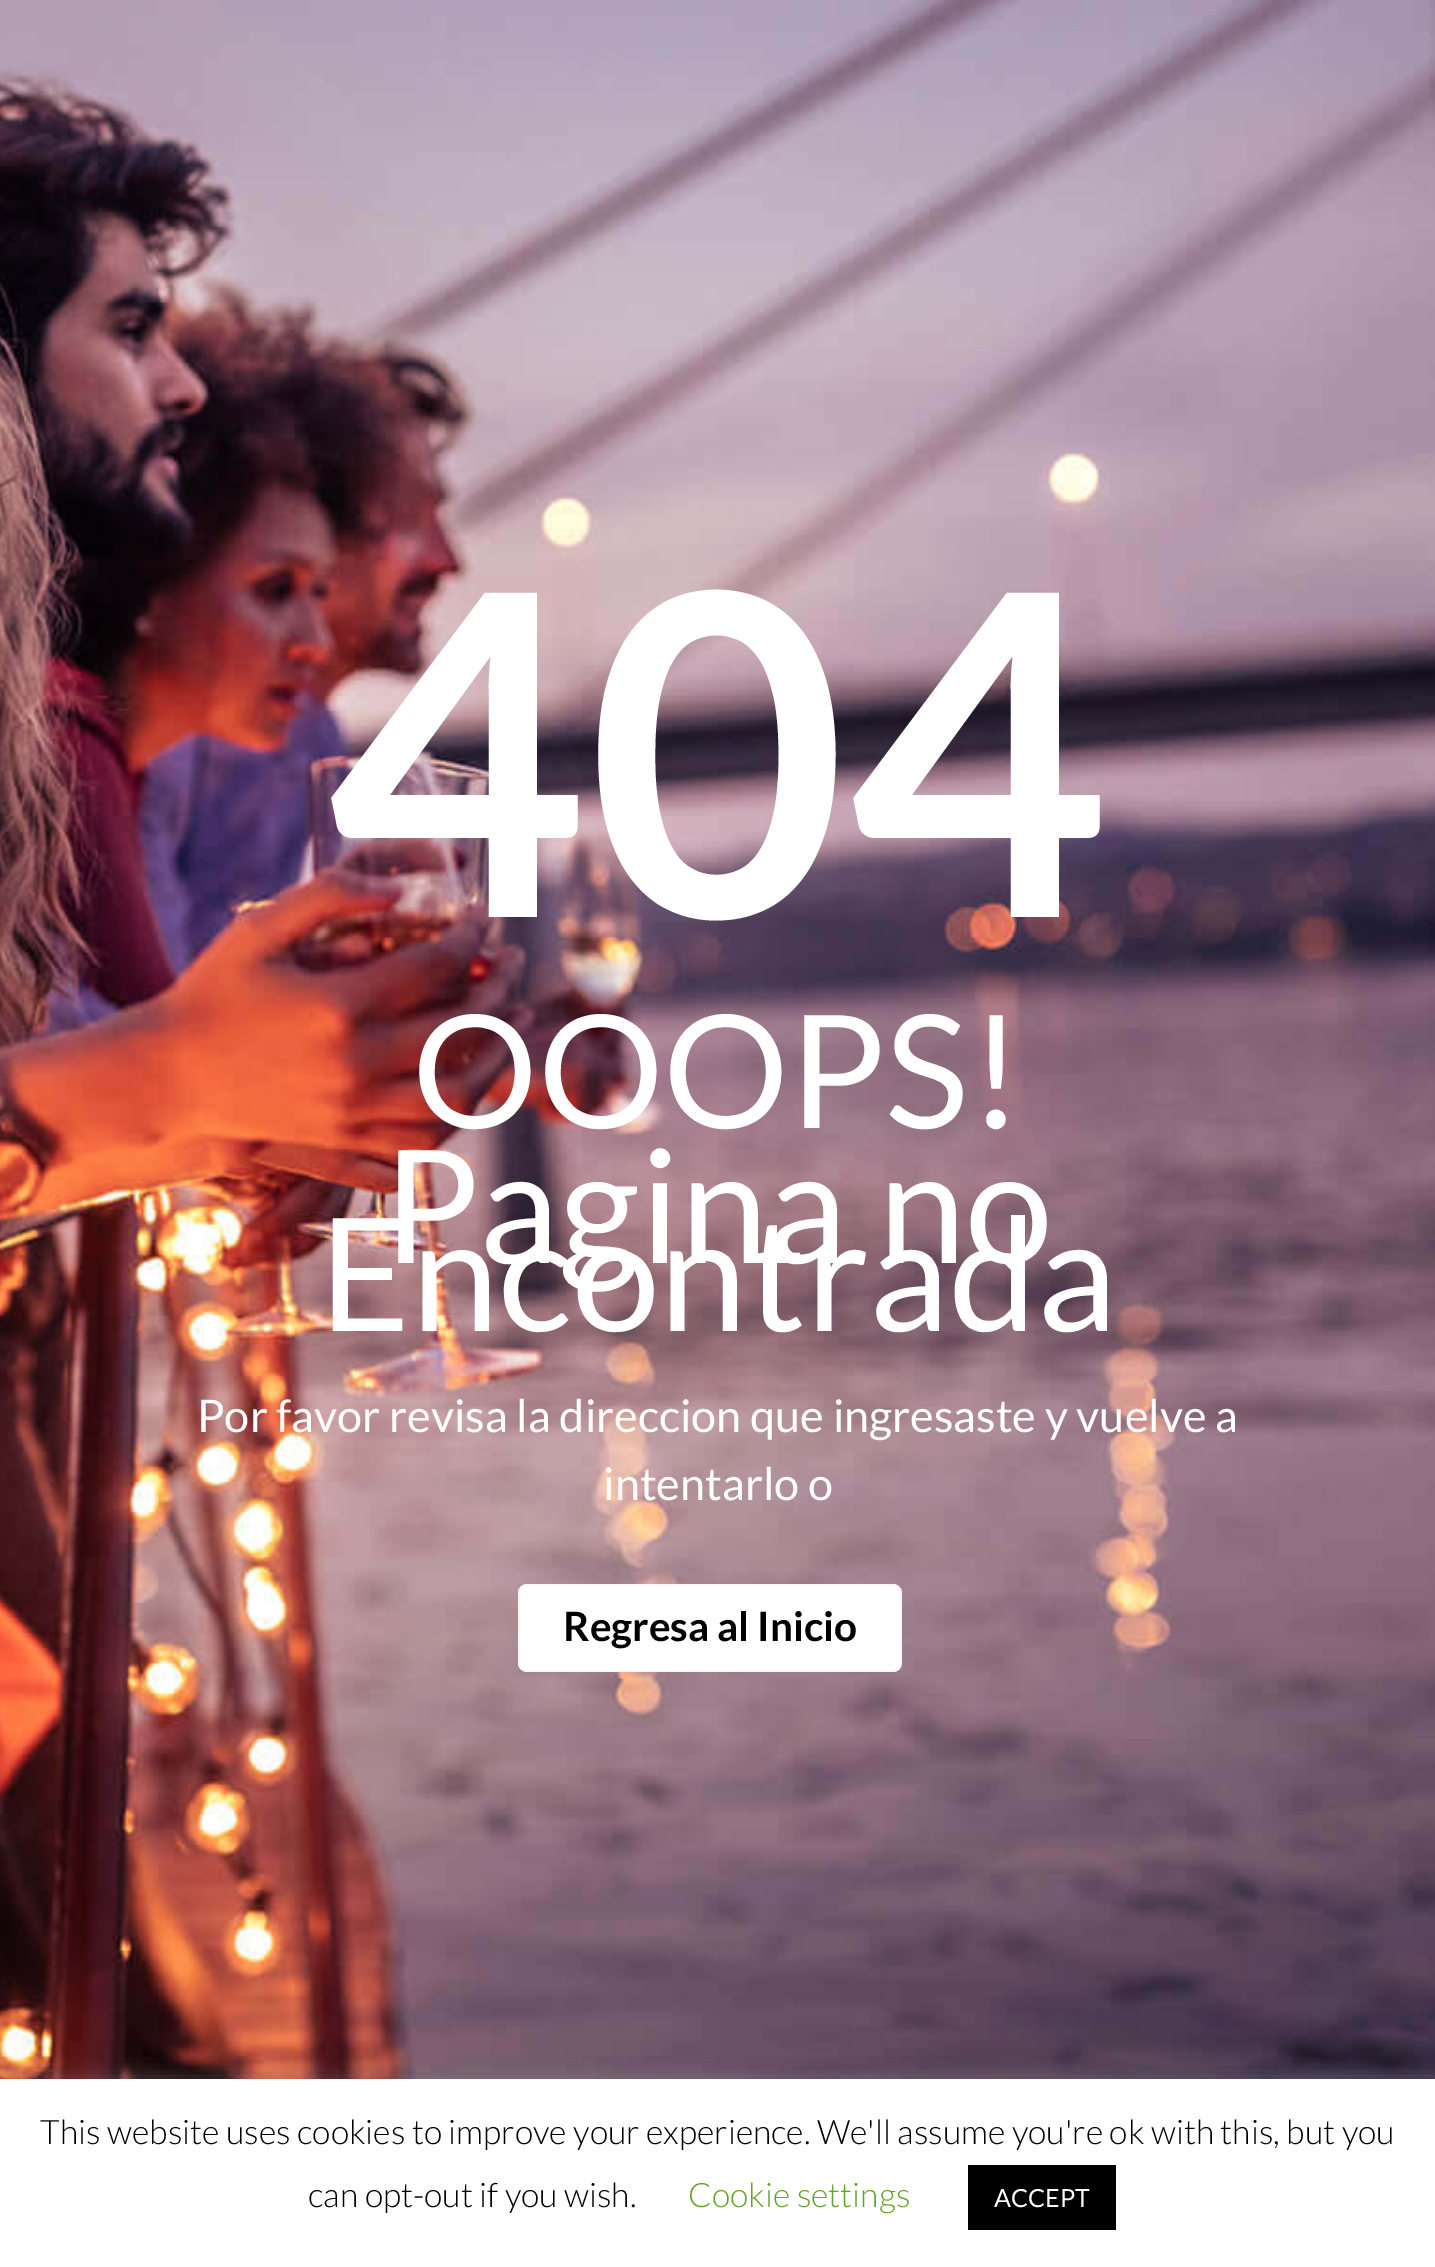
%!PS
<< /PageSize [1435 2267] /PageUsesTransparency true >> setpagedevice
/fl/fill load def
/lw/setlinewidth load def
/co { dup -16 bitshift 255 div exch dup -8 bitshift 255 and 255 div exch 255 and 255 div setrgbcolor } def
/fn { [ exch dup neg 0 0 3 -1 roll 0 0 ] selectfont } def
/tx { co fn moveto show } def
/bx { co rectfill } def
/al { dup .setfillconstantalpha .setstrokeconstantalpha } def
/rr { 5 dict begin { /r /h /w /y /x } { exch def } forall
  x r add y moveto x w add y 2 copy h add r arct x w add y h add x 1 index r arct
  x y h add x y r arct x y 2 copy exch w add exch r arct closepath end } def
/sh { 12 dict begin { /a /b /q /h /w /y /x } { exch def } forall gsave /was 0 def
  9 -2 -9 { dup b mul 4 div /e exch def 1 sub .425 mul 2.718 exch exp 1 add a .99 .min exch div /now exch def
    1 1 now sub 1 was sub div sub al /was now def
    w h .min e 2 mul add 0 gt { x e sub y e sub w e 2 mul add h e 2 mul add
      q e add b .6 mul add w h .min 2 div e add .min 0 .max rr fill } if } for grestore end } def
/im { 5 dict begin { /h /w /y /x /name } { exch def } forall
  gsave x y translate w h scale
  w h 8 [w 0 0 h 0 0] name (r) file false 3 colorimage grestore end } def
0 .pushpdf14devicefilter
0 2267 translate 1 -1 scale
4 setmiterlimit
0 0 1435 2267 16#FFFFFF bx
(media/1.raw) 0 0 1435 2079 im
518 1584 384 88 9 rr fl
0.03 al
16#000000 co
2 lw
519 1585 382 86 rectstroke
1 al
16#ACABAB co
0 2077 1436 189 0 11 .3 sh
0 2079 1435 188 16#FFFFFF bx
968 2165 148 65 16#000000 bx
(404) 326 917 /Lato-Bold 450 16#FFFFFF tx
(OOOPS!) 412 1128 /Lato-Regular 157.5 16#FFFFFF tx
(Pagina no) 383 1263 /Lato-Regular 157.5 16#FFFFFF tx
(Encontrada) 319 1331 /Lato-Regular 157.5 16#FFFFFF tx
(Por favor revisa la direccion que ingresaste y vuelve a) 197 1432 /Lato-Regular 45 16#FFFFFF tx
(intentarlo o) 603 1500 /Lato-Regular 45 16#FFFFFF tx
(Regresa al Inicio) 563 1641 /Lato-Bold 40.5 16#000000 tx
(This website uses cookies to improve your experience. We'll assume you're ok with this, but you) 40 2144 /Lato-Light 33.75 16#000000 tx
(can opt-out if you wish.) 308 2207 /Lato-Light 33.75 16#000000 tx
(Cookie settings) 688 2207 /Lato-Light 33.75 16#62A329 tx
(ACCEPT) 994 2207 /Lato-Regular 25 16#FFFFFF tx
.poppdf14devicefilter showpage
